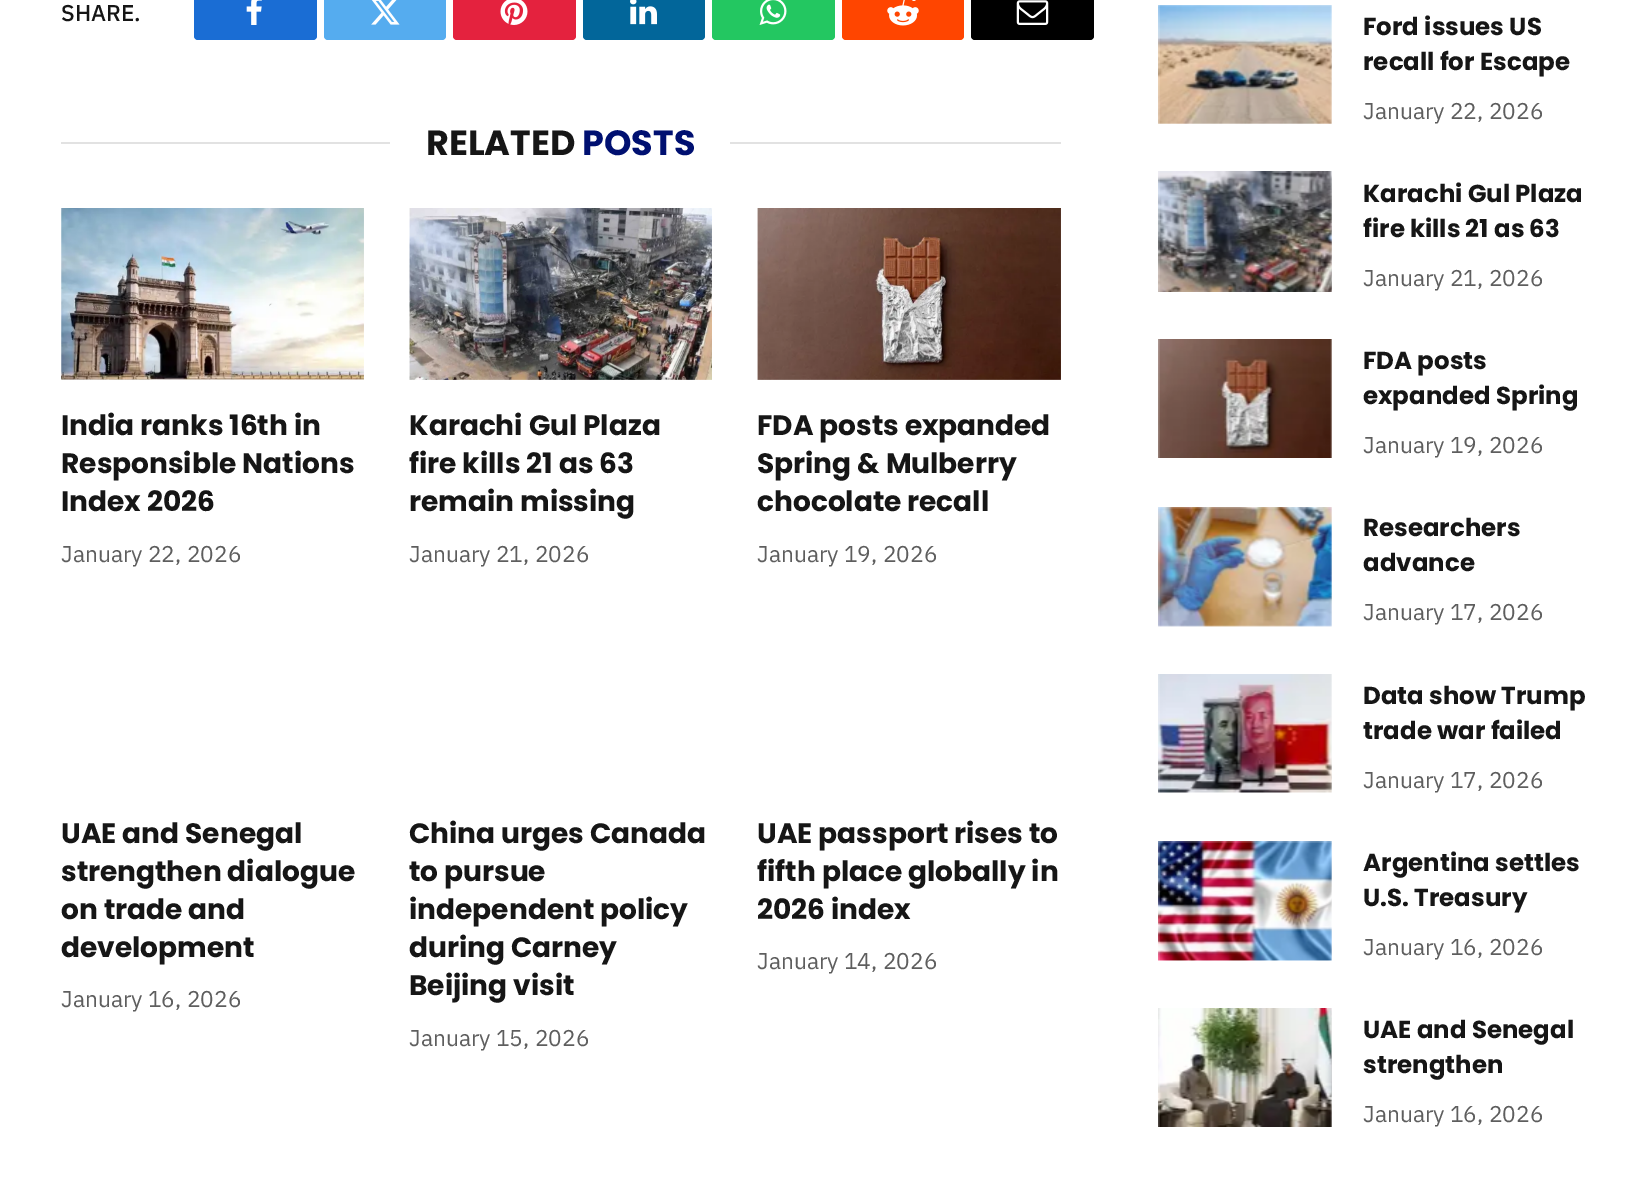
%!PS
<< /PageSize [1651 1190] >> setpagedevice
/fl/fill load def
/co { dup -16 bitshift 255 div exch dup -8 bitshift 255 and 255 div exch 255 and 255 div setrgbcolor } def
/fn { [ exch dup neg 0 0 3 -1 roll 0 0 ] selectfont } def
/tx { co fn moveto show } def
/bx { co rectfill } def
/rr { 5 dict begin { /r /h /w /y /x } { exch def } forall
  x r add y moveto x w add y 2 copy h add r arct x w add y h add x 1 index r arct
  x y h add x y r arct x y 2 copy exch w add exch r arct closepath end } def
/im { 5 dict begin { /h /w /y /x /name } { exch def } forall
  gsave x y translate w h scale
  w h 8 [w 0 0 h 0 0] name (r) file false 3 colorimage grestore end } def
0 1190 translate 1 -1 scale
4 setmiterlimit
0 0 1651 1190 16#FFFFFF bx
16#1A6DD4 co
194 -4 123 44 4 rr fl
(media/1.raw) 246 0 16 25 im
16#55ACEF co
324 -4 122 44 4 rr fl
(media/2.raw) 371 0 29 25 im
16#E4223E co
453 -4 123 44 4 rr fl
(media/3.raw) 500 0 28 25 im
16#02669A co
583 -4 122 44 4 rr fl
(media/4.raw) 630 0 27 25 im
16#23C761 co
712 -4 123 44 4 rr fl
(media/5.raw) 759 0 28 25 im
16#FF4500 co
842 -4 122 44 4 rr fl
(media/6.raw) 887 0 32 26 im
16#000000 co
971 -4 123 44 4 rr fl
(media/7.raw) 1016 0 33 25 im
61 142 329 2 16#E2E2E2 bx
730 142 331 2 16#E2E2E2 bx
(media/8.raw) 61 208 303 172 im
(media/9.raw) 409 208 303 172 im
(media/10.raw) 757 208 304 172 im
(media/11.raw) 1158 5 174 119 im
(media/12.raw) 1158 171 174 121 im
(media/13.raw) 1158 339 174 119 im
(media/14.raw) 1158 507 174 120 im
(media/15.raw) 1158 674 174 119 im
(media/16.raw) 1158 841 174 120 im
(media/17.raw) 1158 1008 174 119 im
(SHARE.) 61 21 /IBMPlexSans-Medium 22.75 16#161616 tx
(RELATED) 426 155 /Poppins-Bold 35 16#161616 tx
(POSTS) 582 155 /Poppins-Bold 35 16#001071 tx
(India ranks 16th in) 61 435 /Poppins-Bold 28 16#161616 tx
(Responsible Nations) 61 473 /Poppins-Bold 28 16#161616 tx
(Index 2026) 61 511 /Poppins-Bold 28 16#161616 tx
(January 22, 2026) 61 562 /IBMPlexSans-Regular 22.75 16#5E5E5E tx
(Karachi Gul Plaza) 409 435 /Poppins-Bold 28 16#161616 tx
(fire kills 21 as 63) 409 473 /Poppins-Bold 28 16#161616 tx
(remain missing) 409 511 /Poppins-Bold 28 16#161616 tx
(January 21, 2026) 409 562 /IBMPlexSans-Regular 22.75 16#5E5E5E tx
(FDA posts expanded) 757 435 /Poppins-Bold 28 16#161616 tx
(Spring & Mulberry) 757 473 /Poppins-Bold 28 16#161616 tx
(chocolate recall) 757 511 /Poppins-Bold 28 16#161616 tx
(January 19, 2026) 757 562 /IBMPlexSans-Regular 22.75 16#5E5E5E tx
(UAE and Senegal) 61 843 /Poppins-Bold 28 16#161616 tx
(strengthen dialogue) 61 881 /Poppins-Bold 28 16#161616 tx
(on trade and) 61 919 /Poppins-Bold 28 16#161616 tx
(development) 61 957 /Poppins-Bold 28 16#161616 tx
(January 16, 2026) 61 1007 /IBMPlexSans-Regular 22.75 16#5E5E5E tx
(China urges Canada) 409 843 /Poppins-Bold 28 16#161616 tx
(to pursue) 409 881 /Poppins-Bold 28 16#161616 tx
(independent policy) 409 919 /Poppins-Bold 28 16#161616 tx
(during Carney) 409 957 /Poppins-Bold 28 16#161616 tx
(Beijing visit) 409 995 /Poppins-Bold 28 16#161616 tx
(January 15, 2026) 409 1046 /IBMPlexSans-Regular 22.75 16#5E5E5E tx
(UAE passport rises to) 757 843 /Poppins-Bold 28 16#161616 tx
(fifth place globally in) 757 881 /Poppins-Bold 28 16#161616 tx
(2026 index) 757 919 /Poppins-Bold 28 16#161616 tx
(January 14, 2026) 757 969 /IBMPlexSans-Regular 22.75 16#5E5E5E tx
(Ford issues US) 1363 35 /Poppins-Bold 24.5 16#161616 tx
(recall for Escape) 1363 70 /Poppins-Bold 24.5 16#161616 tx
(January 22, 2026) 1363 119 /IBMPlexSans-Regular 22.75 16#5E5E5E tx
(Karachi Gul Plaza) 1363 202 /Poppins-Bold 24.5 16#161616 tx
(fire kills 21 as 63) 1363 237 /Poppins-Bold 24.5 16#161616 tx
(January 21, 2026) 1363 286 /IBMPlexSans-Regular 22.75 16#5E5E5E tx
(FDA posts) 1363 369 /Poppins-Bold 24.5 16#161616 tx
(expanded Spring) 1363 404 /Poppins-Bold 24.5 16#161616 tx
(January 19, 2026) 1363 453 /IBMPlexSans-Regular 22.75 16#5E5E5E tx
(Researchers) 1363 536 /Poppins-Bold 24.5 16#161616 tx
(advance) 1363 571 /Poppins-Bold 24.5 16#161616 tx
(January 17, 2026) 1363 620 /IBMPlexSans-Regular 22.75 16#5E5E5E tx
(Data show Trump) 1363 704 /Poppins-Bold 24.5 16#161616 tx
(trade war failed) 1363 739 /Poppins-Bold 24.5 16#161616 tx
(January 17, 2026) 1363 788 /IBMPlexSans-Regular 22.75 16#5E5E5E tx
(Argentina settles) 1363 871 /Poppins-Bold 24.5 16#161616 tx
(U.S. Treasury) 1363 906 /Poppins-Bold 24.5 16#161616 tx
(January 16, 2026) 1363 955 /IBMPlexSans-Regular 22.75 16#5E5E5E tx
(UAE and Senegal) 1363 1038 /Poppins-Bold 24.5 16#161616 tx
(strengthen) 1363 1073 /Poppins-Bold 24.5 16#161616 tx
(January 16, 2026) 1363 1122 /IBMPlexSans-Regular 22.75 16#5E5E5E tx
showpage
